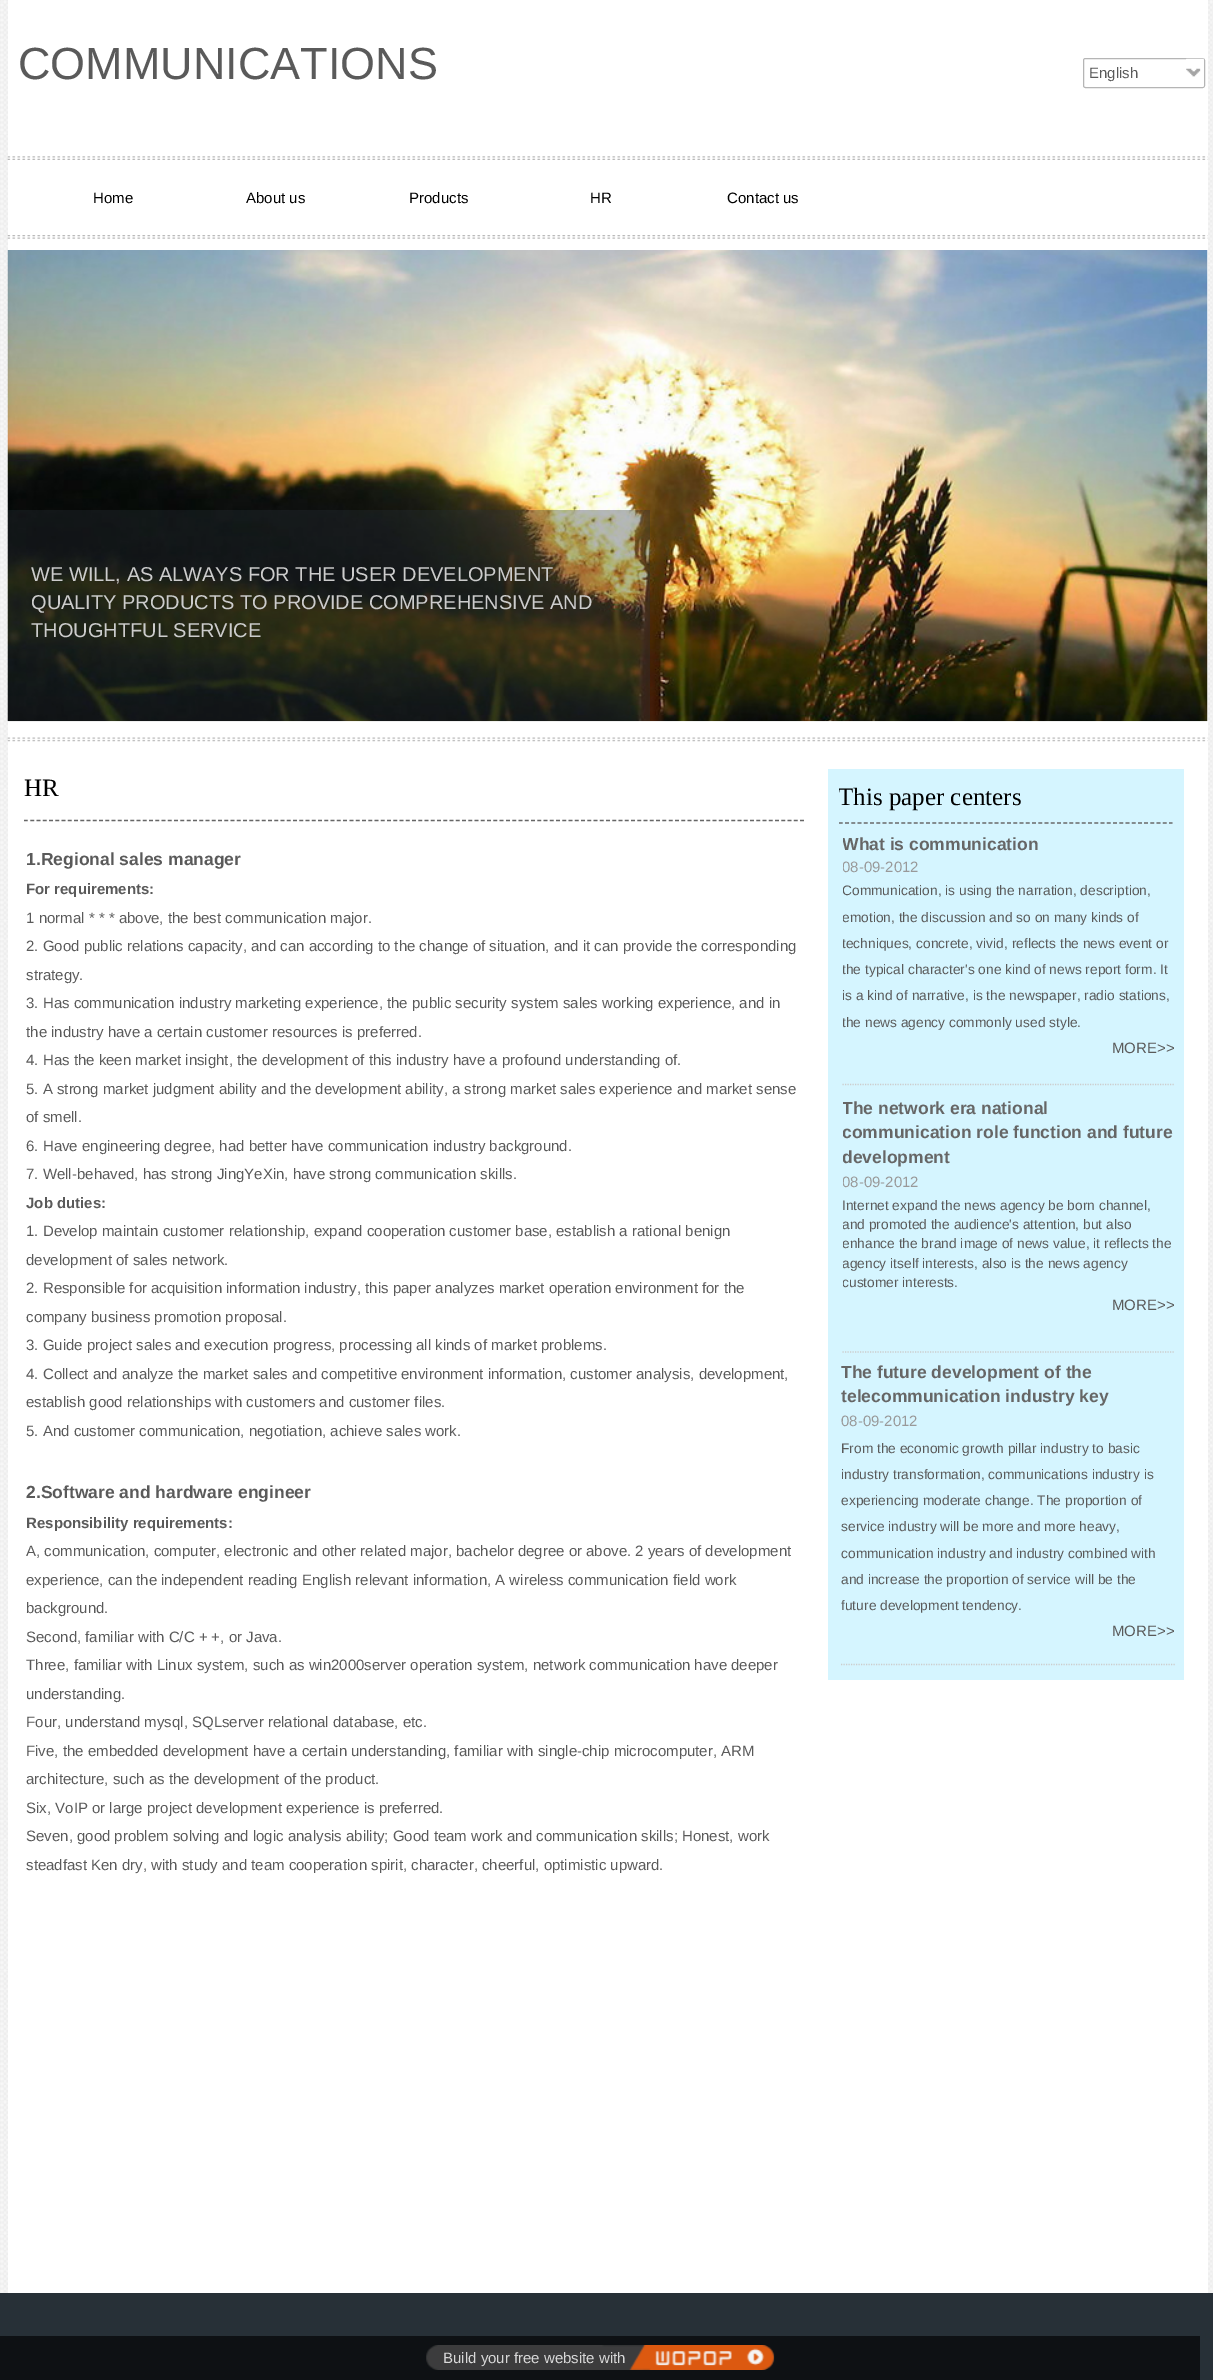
%!PS
<< /PageSize [1213 2380] /PageUsesTransparency true >> setpagedevice
/mt/moveto load def
/li/lineto load def
/st/stroke load def
/gs/gsave load def
/gr/grestore load def
/lw/setlinewidth load def
/co { dup -16 bitshift 255 div exch dup -8 bitshift 255 and 255 div exch 255 and 255 div setrgbcolor } def
/fn { [ exch dup neg 0 0 3 -1 roll 0 0 ] selectfont } def
/tx { co fn moveto show } def
/bx { co rectfill } def
/al { dup .setfillconstantalpha .setstrokeconstantalpha } def
/rr { 5 dict begin { /r /h /w /y /x } { exch def } forall
  x r add y moveto x w add y 2 copy h add r arct x w add y h add x 1 index r arct
  x y h add x y r arct x y 2 copy exch w add exch r arct closepath end } def
/im { 5 dict begin { /h /w /y /x /name } { exch def } forall
  gsave x y translate w h scale
  w h 8 [w 0 0 h 0 0] name (r) file false 3 colorimage grestore end } def
0 .pushpdf14devicefilter
0 2380 translate 1 -1 scale
4 setmiterlimit
0 0 1213 2380 16#FFFFFF bx
(media/1.raw) 0 0 1213 2293 im
8 0 1200 2293 16#FFFFFF bx
16#B5B5B5 co
1083.5 58.5 121 29 2 rr st
(media/2.raw) 1186 58 18 29 im
(media/3.raw) 7 156 1201 4 im
(media/4.raw) 7 235 1201 4 im
(media/5.raw) 7 250 1201 472 im
0.34 al
8 510 642 211 16#273037 bx
1 al
(media/6.raw) 7 737 1201 5 im
16#666666 co
1.2 lw
[3.75 2.51] 0 setdash
24 820.5 mt 804 820.5 li st
828 769 356 911 16#D5F5FF bx
16#666666 co
[3.75 2.48] 0 setdash
839 823 mt 1172.5 823 li st
16#CCCCCC co
[1.25 1.25] 0 setdash
842.5 1084.5 mt 1175 1084.5 li st
842.5 1352 mt 1175 1352 li st
841 1664.5 mt 1175 1664.5 li st
0 2293 1213 87 16#273037 bx
0 2336 1200 44 16#0E1114 bx
(media/7.raw) 426 2345 349 25 im
(media/8.raw) 629 2345 145 25 im
(COMMUNICATIONS) 18 79 /LiberationSans-Regular 45 16#5A5A5A tx
(English) 1089 78 /LiberationSans-Regular 15 16#5A5A5A tx
(Home) 93 203 /LiberationSans-Regular 15 16#000000 tx
(About us) 246 203 /LiberationSans-Regular 15 16#000000 tx
(Products) 409 203 /LiberationSans-Regular 15 16#000000 tx
(HR) 590 203 /LiberationSans-Regular 15 16#000000 tx
(Contact us) 727 203 /LiberationSans-Regular 15 16#000000 tx
(WE WILL, AS ALWAYS FOR THE USER DEVELOPMENT) 31 581 /LiberationSans-Regular 20 16#CCCCCC tx
(QUALITY PRODUCTS TO PROVIDE COMPREHENSIVE AND) 31 609 /LiberationSans-Regular 20 16#CCCCCC tx
(THOUGHTFUL SERVICE) 31 637 /LiberationSans-Regular 20 16#CCCCCC tx
(HR) 24 796 /LiberationSerif-Regular 25 16#000000 tx
gs
839 781 334 42 rectclip
(This paper centers) 838 805 /LiberationSerif-Regular 25 16#000000 tx
gr
(1.Regional sales manager) 26 865 /LiberationSans-Bold 17.5 16#5A5A5A tx
(For requirements:) 26 894 /LiberationSans-Bold 15 16#5A5A5A tx
(1 normal * * * above, the best communication major.) 26 923 /LiberationSans-Regular 15 16#5A5A5A tx
(2. Good public relations capacity, and can according to the change of situation, and it can provide the corresponding) 26 951 /LiberationSans-Regular 15 16#5A5A5A tx
(strategy.) 26 980 /LiberationSans-Regular 15 16#5A5A5A tx
(3. Has communication industry marketing experience, the public security system sales working experience, and in) 26 1008 /LiberationSans-Regular 15 16#5A5A5A tx
(the industry have a certain customer resources is preferred.) 26 1037 /LiberationSans-Regular 15 16#5A5A5A tx
(4. Has the keen market insight, the development of this industry have a profound understanding of.) 26 1065 /LiberationSans-Regular 15 16#5A5A5A tx
(5. A strong market judgment ability and the development ability, a strong market sales experience and market sense) 26 1094 /LiberationSans-Regular 15 16#5A5A5A tx
(of smell.) 26 1122 /LiberationSans-Regular 15 16#5A5A5A tx
(6. Have engineering degree, had better have communication industry background.) 26 1151 /LiberationSans-Regular 15 16#5A5A5A tx
(7. Well-behaved, has strong JingYeXin, have strong communication skills.) 26 1179 /LiberationSans-Regular 15 16#5A5A5A tx
(Job duties:) 26 1208 /LiberationSans-Bold 15 16#5A5A5A tx
(1. Develop maintain customer relationship, expand cooperation customer base, establish a rational benign) 26 1236 /LiberationSans-Regular 15 16#5A5A5A tx
(development of sales network.) 26 1265 /LiberationSans-Regular 15 16#5A5A5A tx
(2. Responsible for acquisition information industry, this paper analyzes market operation environment for the) 26 1293 /LiberationSans-Regular 15 16#5A5A5A tx
(company business promotion proposal.) 26 1322 /LiberationSans-Regular 15 16#5A5A5A tx
(3. Guide project sales and execution progress, processing all kinds of market problems.) 26 1350 /LiberationSans-Regular 15 16#5A5A5A tx
(4. Collect and analyze the market sales and competitive environment information, customer analysis, development,) 26 1379 /LiberationSans-Regular 15 16#5A5A5A tx
(establish good relationships with customers and customer files.) 26 1407 /LiberationSans-Regular 15 16#5A5A5A tx
(5. And customer communication, negotiation, achieve sales work.) 26 1436 /LiberationSans-Regular 15 16#5A5A5A tx
(2.Software and hardware engineer) 26 1498 /LiberationSans-Bold 17.5 16#5A5A5A tx
(Responsibility requirements:) 26 1528 /LiberationSans-Bold 15 16#5A5A5A tx
(A, communication, computer, electronic and other related major, bachelor degree or above. 2 years of development) 26 1556 /LiberationSans-Regular 15 16#5A5A5A tx
(experience, can the independent reading English relevant information, A wireless communication field work) 26 1585 /LiberationSans-Regular 15 16#5A5A5A tx
(background.) 26 1613 /LiberationSans-Regular 15 16#5A5A5A tx
(Second, familiar with C/C + +, or Java.) 26 1642 /LiberationSans-Regular 15 16#5A5A5A tx
(Three, familiar with Linux system, such as win2000server operation system, network communication have deeper) 26 1670 /LiberationSans-Regular 15 16#5A5A5A tx
(understanding.) 26 1699 /LiberationSans-Regular 15 16#5A5A5A tx
(Four, understand mysql, SQLserver relational database, etc.) 26 1727 /LiberationSans-Regular 15 16#5A5A5A tx
(Five, the embedded development have a certain understanding, familiar with single-chip microcomputer, ARM) 26 1756 /LiberationSans-Regular 15 16#5A5A5A tx
(architecture, such as the development of the product.) 26 1784 /LiberationSans-Regular 15 16#5A5A5A tx
(Six, VoIP or large project development experience is preferred.) 26 1813 /LiberationSans-Regular 15 16#5A5A5A tx
(Seven, good problem solving and logic analysis ability; Good team work and communication skills; Honest, work) 26 1841 /LiberationSans-Regular 15 16#5A5A5A tx
(steadfast Ken dry, with study and team cooperation spirit, character, cheerful, optimistic upward.) 26 1870 /LiberationSans-Regular 15 16#5A5A5A tx
gs
843 833 332 251 rectclip
(What is communication) 842 850 /LiberationSans-Bold 17.5 16#666666 tx
(08-09-2012) 842 872 /LiberationSans-Regular 15 16#999999 tx
gr
gs
843 878 332 183 rectclip
(Communication, is using the narration, description,) 842 895 /LiberationSans-Regular 13.75 16#5A5A5A tx
(emotion, the discussion and so on many kinds of) 842 922 /LiberationSans-Regular 13.75 16#5A5A5A tx
(techniques, concrete, vivid, reflects the news event or) 842 948 /LiberationSans-Regular 13.75 16#5A5A5A tx
(the typical character's one kind of news report form. It) 842 974 /LiberationSans-Regular 13.75 16#5A5A5A tx
(is a kind of narrative, is the newspaper, radio stations,) 842 1000 /LiberationSans-Regular 13.75 16#5A5A5A tx
(the news agency commonly used style.) 842 1027 /LiberationSans-Regular 13.75 16#5A5A5A tx
gr
(MORE>>) 1112 1053 /LiberationSans-Regular 15 16#5A5A5A tx
gs
843 1096 332 223 rectclip
(The network era national) 842 1114 /LiberationSans-Bold 17.5 16#666666 tx
(communication role function and future) 842 1138 /LiberationSans-Bold 17.5 16#666666 tx
(development) 842 1163 /LiberationSans-Bold 17.5 16#666666 tx
(08-09-2012) 842 1187 /LiberationSans-Regular 15 16#999999 tx
gr
(Internet expand the news agency be born channel,) 842 1210 /LiberationSans-Regular 13.75 16#5A5A5A tx
gs
843 1096 332 223 rectclip
(and promoted the audience's attention, but also) 842 1229 /LiberationSans-Regular 13.75 16#5A5A5A tx
(enhance the brand image of news value, it reflects the) 842 1248 /LiberationSans-Regular 13.75 16#5A5A5A tx
(agency itself interests, also is the news agency) 842 1268 /LiberationSans-Regular 13.75 16#5A5A5A tx
(customer interests.) 842 1287 /LiberationSans-Regular 13.75 16#5A5A5A tx
gr
(MORE>>) 1112 1310 /LiberationSans-Regular 15 16#5A5A5A tx
(The future development of the) 841 1378 /LiberationSans-Bold 17.5 16#666666 tx
(telecommunication industry key) 841 1402 /LiberationSans-Bold 17.5 16#666666 tx
(08-09-2012) 841 1426 /LiberationSans-Regular 15 16#999999 tx
(From the economic growth pillar industry to basic) 841 1453 /LiberationSans-Regular 13.75 16#5A5A5A tx
(industry transformation, communications industry is) 841 1479 /LiberationSans-Regular 13.75 16#5A5A5A tx
(experiencing moderate change. The proportion of) 841 1505 /LiberationSans-Regular 13.75 16#5A5A5A tx
(service industry will be more and more heavy,) 841 1531 /LiberationSans-Regular 13.75 16#5A5A5A tx
(communication industry and industry combined with) 841 1558 /LiberationSans-Regular 13.75 16#5A5A5A tx
(and increase the proportion of service will be the) 841 1584 /LiberationSans-Regular 13.75 16#5A5A5A tx
(future development tendency.) 841 1610 /LiberationSans-Regular 13.75 16#5A5A5A tx
(MORE>>) 1112 1636 /LiberationSans-Regular 15 16#5A5A5A tx
(Build your free website with) 443 2363 /LiberationSans-Regular 15 16#D8D8D8 tx
.poppdf14devicefilter showpage
